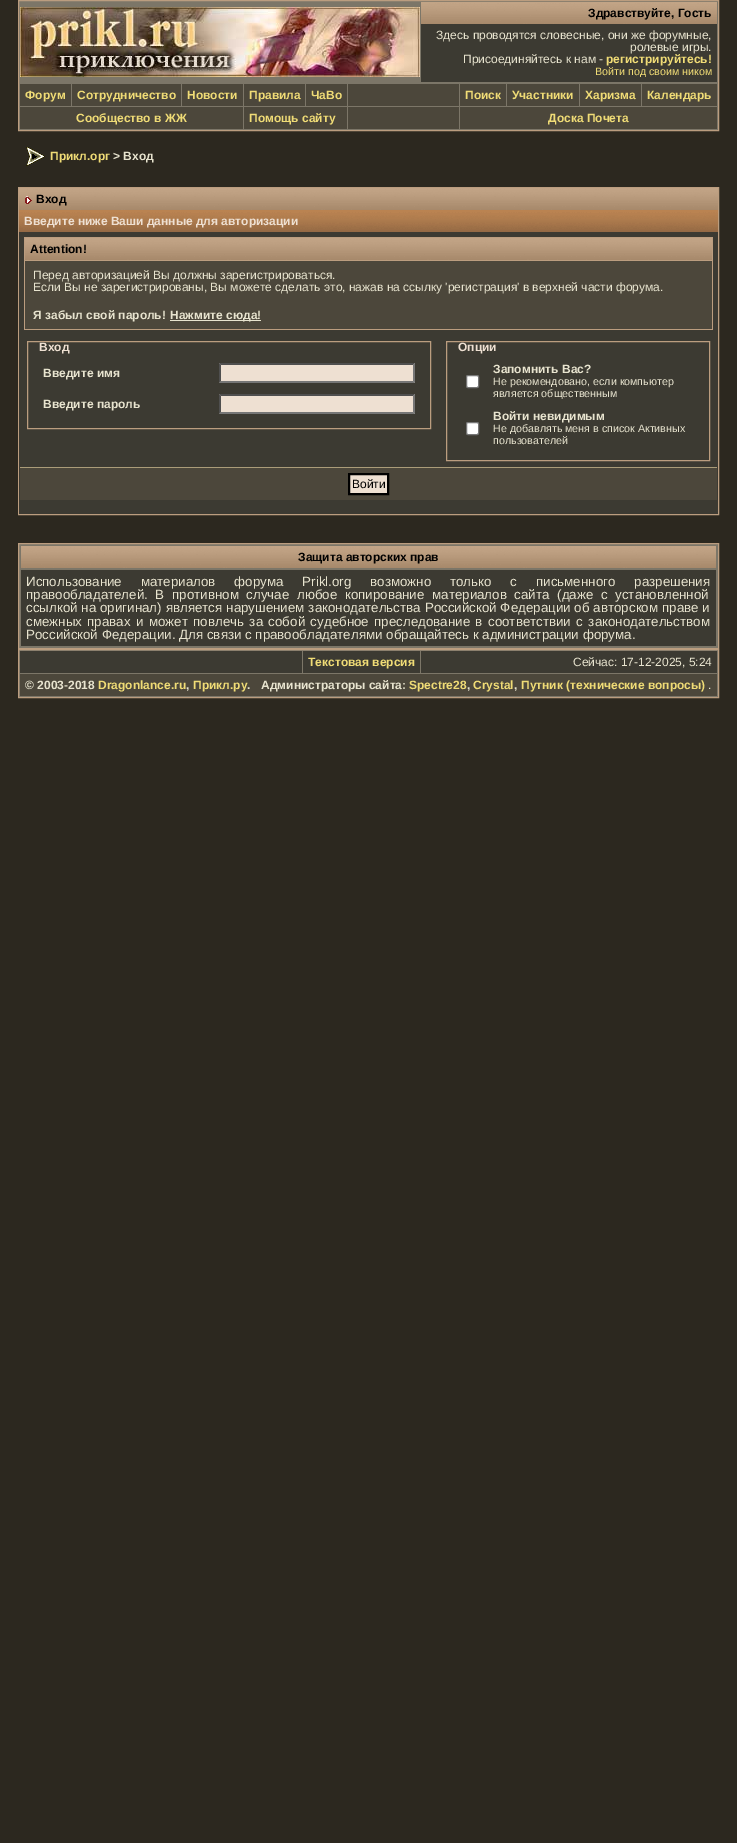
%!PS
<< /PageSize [737 1843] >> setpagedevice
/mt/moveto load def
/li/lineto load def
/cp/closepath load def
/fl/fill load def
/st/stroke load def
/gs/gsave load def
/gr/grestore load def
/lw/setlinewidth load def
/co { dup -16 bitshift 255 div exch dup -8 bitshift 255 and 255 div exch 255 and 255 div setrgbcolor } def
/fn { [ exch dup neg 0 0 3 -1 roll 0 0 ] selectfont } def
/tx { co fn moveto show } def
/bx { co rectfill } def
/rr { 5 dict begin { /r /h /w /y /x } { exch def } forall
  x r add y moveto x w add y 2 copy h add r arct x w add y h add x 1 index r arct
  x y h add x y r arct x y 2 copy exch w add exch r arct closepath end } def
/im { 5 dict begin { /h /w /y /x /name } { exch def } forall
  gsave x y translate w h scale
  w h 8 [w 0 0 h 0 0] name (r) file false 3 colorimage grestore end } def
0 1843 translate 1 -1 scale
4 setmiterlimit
0 0 737 1843 16#2C281F bx
16#7C7668 co
18.5 .5 mt 718.5 .5 li 718.5 130.5 li 18.5 130.5 li cp gs fl gr
16#BB9D7F co
st
(media/1.raw) 20 7 400 70 im
(media/2.raw) 421 2 296 22 im
421 24 296 58 16#3C3A32 bx
20 84 51 22 16#4C473B bx
72 84 109 22 16#4C473B bx
182 84 61 22 16#4C473B bx
244 84 61 22 16#4C473B bx
306 84 41 22 16#4C473B bx
348 84 111 22 16#4C473B bx
460 84 46 22 16#4C473B bx
507 84 72 22 16#4C473B bx
580 84 61 22 16#4C473B bx
642 84 75 22 16#4C473B bx
20 107 223 22 16#4C473B bx
244 107 103 22 16#4C473B bx
348 107 111 22 16#4C473B bx
460 107 257 22 16#4C473B bx
(media/3.raw) 26 147 19 19 im
16#BB9D7F co
18.5 187.5 700 327 rectstroke
19 232 699 282 16#3C3A32 bx
(media/4.raw) 19 188 699 22 im
(media/5.raw) 25 196 7 8 im
(media/6.raw) 19 210 699 22 im
25 261 687 68 16#4C473B bx
712 237 1 93 16#BB9D7F bx
24 329 689 1 16#BB9D7F bx
24 237 1 93 16#BB9D7F bx
(media/7.raw) 25 238 687 22 im
25 237 687 1 16#BB9D7F bx
25 260 687 1 16#BB9D7F bx
170 320 91 1 16#E8E4CF bx
16#BB9D7F co
27.5 341.5 403 87 rectstroke
219 363 196 20 16#EEE0D2 bx
16#4F4F4F co
219 363 mt 415 363 li 413 365 li 221 365 li cp fl
16#767676 co
415 363 mt 415 383 li 413 381 li 413 365 li cp fl
415 383 mt 219 383 li 221 381 li 413 381 li cp fl
16#4F4F4F co
219 383 mt 219 363 li 221 365 li 221 381 li cp fl
219 394 196 20 16#EEE0D2 bx
16#4F4F4F co
219 394 mt 415 394 li 413 396 li 221 396 li cp fl
16#767676 co
415 394 mt 415 414 li 413 412 li 413 396 li cp fl
415 414 mt 219 414 li 221 412 li 413 412 li cp fl
16#4F4F4F co
219 414 mt 219 394 li 221 396 li 221 412 li cp fl
16#BB9D7F co
446.5 341.5 263 119 rectstroke
16#FFFFFF co
466.5 375.5 12 12 1.5 rr gs fl gr
16#767676 co
st
16#FFFFFF co
466.5 422.5 12 12 1.5 rr gs fl gr
16#767676 co
st
20 468 697 32 16#4C473B bx
20 467 697 1 16#AA9C79 bx
16#EEE0D2 co
349 474 mt 388 474 li 388 494 li 349 494 li cp gs fl gr
16#000000 co
2 lw
st
16#7C7668 co
18.5 543.5 mt 718.5 543.5 li 718.5 648.5 li 18.5 648.5 li cp gs fl gr
16#BB9D7F co
1 lw
st
(media/8.raw) 21 546 695 22 im
21 570 695 76 16#3C3A32 bx
16#7C7668 co
18.5 649.5 mt 718.5 649.5 li 718.5 697.5 li 18.5 697.5 li cp gs fl gr
16#BB9D7F co
st
20 651 282 22 16#3C3A32 bx
303 651 117 22 16#3C3A32 bx
421 651 296 22 16#3C3A32 bx
20 674 697 22 16#4C473B bx
(Здравствуйте, Гость) 588 17 /LiberationSans-Bold 12 16#000000 tx
(Здесь проводятся словесные, они же форумные,) 436 39 /LiberationSans-Regular 12 16#E8E4CF tx
(ролевые игры.) 630 51 /LiberationSans-Regular 12 16#E8E4CF tx
(Присоединяйтесь к нам -) 463 63 /LiberationSans-Regular 12 16#E8E4CF tx
(рeгистрируйтeсь!) 606 63 /LiberationSans-Bold 12 16#F0DC76 tx
(Войти под своим ником) 595 75 /LiberationSans-Regular 10.7 16#F0DC76 tx
(Форум) 25 99 /LiberationSans-Bold 12 16#F0DC76 tx
(Сотрудничество) 77 99 /LiberationSans-Bold 12 16#F0DC76 tx
(Новости) 187 99 /LiberationSans-Bold 12 16#F0DC76 tx
(Правила) 249 99 /LiberationSans-Bold 12 16#F0DC76 tx
(ЧаВо) 311 99 /LiberationSans-Bold 12 16#F0DC76 tx
(Поиск) 465 99 /LiberationSans-Bold 12 16#F0DC76 tx
(Участники) 512 99 /LiberationSans-Bold 12 16#F0DC76 tx
(Харизма) 585 99 /LiberationSans-Bold 12 16#F0DC76 tx
(Календарь) 647 99 /LiberationSans-Bold 12 16#F0DC76 tx
(Сообщество в ЖЖ) 76 122 /LiberationSans-Bold 12 16#F0DC76 tx
(Помощь сайту) 249 122 /LiberationSans-Bold 12 16#F0DC76 tx
(Доска Почета) 548 122 /LiberationSans-Bold 12 16#F0DC76 tx
(Прикл.орг) 50 160 /LiberationSans-Bold 12 16#F0DC76 tx
(> Вход) 113 160 /LiberationSans-Bold 12 16#E8E4CF tx
(Вход) 36 203 /LiberationSans-Bold 12 16#000000 tx
(Введите ниже Ваши данные для авторизации) 24 225 /LiberationSans-Bold 12 16#EEE0D2 tx
(Attention!) 30 253 /LiberationSans-Bold 12 16#000000 tx
(Перед авторизацией Вы должны зарегистрироваться.) 33 279 /LiberationSans-Regular 12 16#E8E4CF tx
(Если Вы не зарегистрированы, Вы можете сделать это, нажав на ссылку 'регистрация' в верхней части форума.) 33 291 /LiberationSans-Regular 12 16#E8E4CF tx
(Я забыл свой пароль!) 33 319 /LiberationSans-Bold 12 16#E8E4CF tx
(Нажмите сюда!) 170 319 /LiberationSans-Bold 12 16#E8E4CF tx
(Вход) 39 351 /LiberationSans-Bold 12 16#EEE0D2 tx
(Введите имя) 43 377 /LiberationSans-Bold 12 16#E8E4CF tx
(Введите пароль) 43 408 /LiberationSans-Bold 12 16#E8E4CF tx
(Опции) 458 351 /LiberationSans-Bold 12 16#EEE0D2 tx
(Запомнить Вас?) 493 373 /LiberationSans-Bold 12 16#E8E4CF tx
(Не рекомендовано, если компьютер) 493 385 /LiberationSans-Regular 10.7 16#E8E4CF tx
(является общественным) 493 397 /LiberationSans-Regular 10.7 16#E8E4CF tx
(Войти невидимым) 493 420 /LiberationSans-Bold 12 16#E8E4CF tx
(Не добавлять меня в список Активных) 493 432 /LiberationSans-Regular 10.7 16#E8E4CF tx
(пользователей) 493 444 /LiberationSans-Regular 10.7 16#E8E4CF tx
(Войти) 352 488 /LiberationSans-Regular 12 16#000000 tx
(Защита авторских прав) 298 561 /LiberationSans-Bold 12 16#000000 tx
/LiberationSans-Regular 13.33 fn
16#E8E4CF co
26 586 mt 15.25 0 32 (Использование материалов форума Prikl.org возможно только с письменного разрешения) widthshow
26 599 mt 4 0 32 (правообладателей. В противном случае любое копирование материалов сайта \(даже с установленной) widthshow
26 612 mt .25 0 32 (ссылкой на оригинал\) является нарушением законодательства Российской Федерации об авторском праве и) widthshow
26 626 mt 1.75 0 32 (смежных правах и может повлечь за собой судебное преследование в соответствии с законодательством) widthshow
(Российской Федерации. Для связи с правообладателями обращайтесь к администрации форума.) 26 639 /LiberationSans-Regular 13.33 16#E8E4CF tx
(Текстовая версия) 308 666 /LiberationSans-Bold 12 16#F0DC76 tx
(Сейчас: 17-12-2025, 5:24) 573 666 /LiberationSans-Regular 12 16#E8E4CF tx
(© 2003-2018) 25 689 /LiberationSans-Bold 12 16#E8E4CF tx
(Dragonlance.ru) 98 689 /LiberationSans-Bold 12 16#F0DC76 tx
(,) 186 689 /LiberationSans-Bold 12 16#E8E4CF tx
(Прикл.ру) 193 689 /LiberationSans-Bold 12 16#F0DC76 tx
(.) 247 689 /LiberationSans-Bold 12 16#E8E4CF tx
(Администраторы сайта:) 261 689 /LiberationSans-Bold 12 16#E8E4CF tx
(Spectre28) 409 689 /LiberationSans-Bold 12 16#F0DC76 tx
(,) 467 689 /LiberationSans-Bold 12 16#E8E4CF tx
(Crystal) 473 689 /LiberationSans-Bold 12 16#F0DC76 tx
(,) 514 689 /LiberationSans-Bold 12 16#E8E4CF tx
(Путник \(технические вопросы\)) 521 689 /LiberationSans-Bold 12 16#F0DC76 tx
(.) 708 689 /LiberationSans-Regular 12 16#E8E4CF tx
showpage
